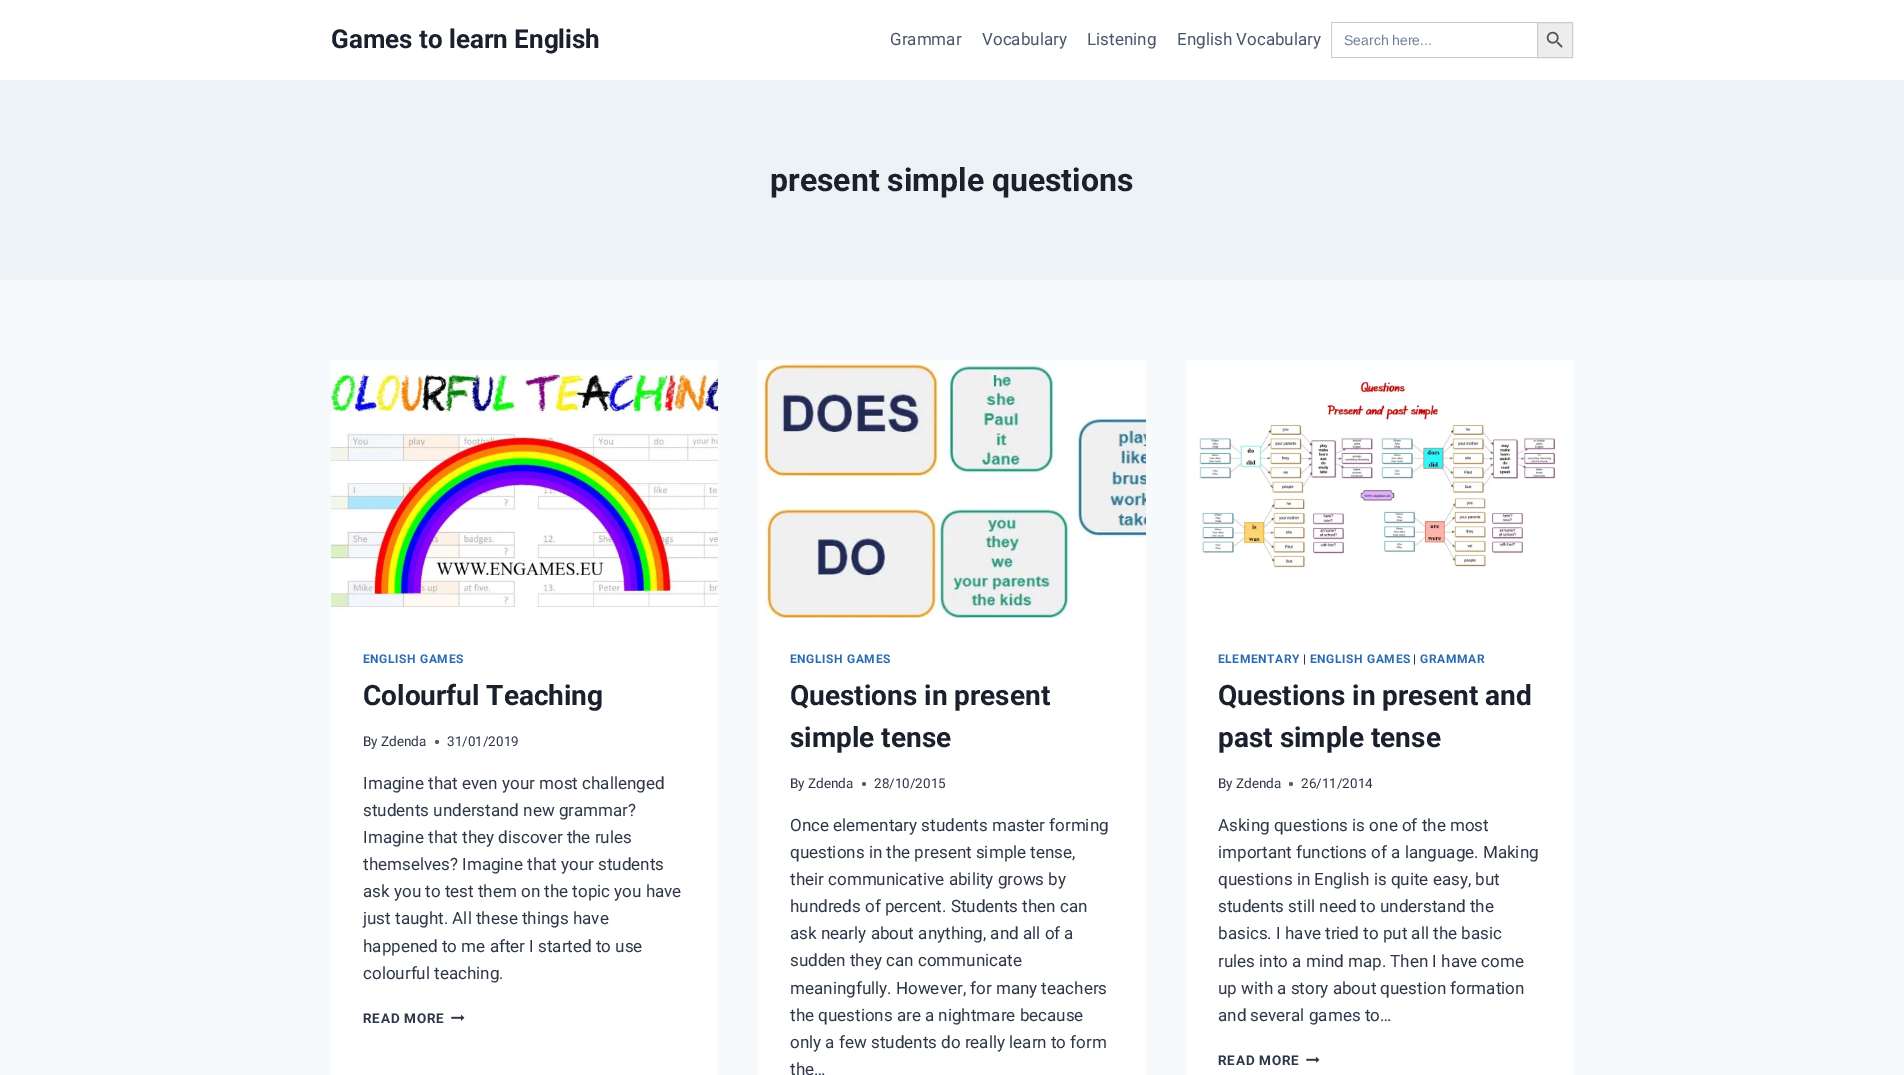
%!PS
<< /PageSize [1904 1075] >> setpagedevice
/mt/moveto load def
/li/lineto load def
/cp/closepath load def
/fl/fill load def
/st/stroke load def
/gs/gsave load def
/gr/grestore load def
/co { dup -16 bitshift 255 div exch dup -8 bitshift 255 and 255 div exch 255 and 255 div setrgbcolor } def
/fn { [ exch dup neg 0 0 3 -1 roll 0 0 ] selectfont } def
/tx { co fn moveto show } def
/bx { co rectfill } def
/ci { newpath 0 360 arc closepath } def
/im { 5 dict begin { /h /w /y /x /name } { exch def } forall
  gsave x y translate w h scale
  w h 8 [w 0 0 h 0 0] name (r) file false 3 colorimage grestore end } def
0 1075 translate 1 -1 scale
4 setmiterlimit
0 0 1904 1075 16#F7FAFC bx
0 0 1904 80 16#FFFFFF bx
1331 22 206 1 16#CCCCCC bx
1331 57 206 1 16#CCCCCC bx
1331 22 1 36 16#CCCCCC bx
16#EDEDED co
1537.5 22.5 mt 1572.5 22.5 li 1572.5 57.5 li 1537.5 57.5 li cp gs fl gr
16#CCCCCC co
st
(media/1.raw) 1546 31 17 17 im
0 80 1904 200 16#EDF2F7 bx
331 610 387 465 16#FFFFFF bx
(media/2.raw) 331 360 387 250 im
16#575F6D co
437 742 2 ci fl
(media/3.raw) 451 1014 14 7 im
758 618 388 457 16#FFFFFF bx
(media/4.raw) 758 360 388 258 im
16#575F6D co
864 784 2 ci fl
1186 570 387 505 16#FFFFFF bx
(media/5.raw) 1186 360 387 210 im
16#575F6D co
1291 784 2 ci fl
(media/3.raw) 1306 1056 14 7 im
(Games to learn English) 331 48 /Roboto-Bold 26 16#1A202C tx
(Grammar) 890 45 /Roboto-Regular 17 16#4A5568 tx
(Vocabulary) 982 45 /Roboto-Regular 17 16#4A5568 tx
(Listening) 1087 45 /Roboto-Regular 17 16#4A5568 tx
(English Vocabulary) 1177 45 /Roboto-Regular 17 16#4A5568 tx
(Search here...) 1344 45 /LiberationSans-Regular 14 16#718096 tx
(present simple questions) 770 191 /Roboto-Bold 32 16#1A202C tx
/Roboto-Bold 12 fn
16#2B6CB0 co
363 663 mt .6 0 (ENGLISH GAMES) ashow
(Colourful Teaching) 363 705 /Roboto-Bold 28 16#1A202C tx
(By Zdenda) 363 746 /Roboto-Regular 13.5 16#2D3748 tx
(31/01/2019) 447 746 /Roboto-Regular 13.5 16#2D3748 tx
(Imagine that even your most challenged) 363 789 /Roboto-Regular 17 16#2D3748 tx
(students understand new grammar?) 363 816 /Roboto-Regular 17 16#2D3748 tx
(Imagine that they discover the rules) 363 843 /Roboto-Regular 17 16#2D3748 tx
(themselves? Imagine that your students) 363 870 /Roboto-Regular 17 16#2D3748 tx
(ask you to test them on the topic you have) 363 897 /Roboto-Regular 17 16#2D3748 tx
(just taught. All these things have) 363 924 /Roboto-Regular 17 16#2D3748 tx
(happened to me after I started to use) 363 952 /Roboto-Regular 17 16#2D3748 tx
(colourful teaching.) 363 979 /Roboto-Regular 17 16#2D3748 tx
/Roboto-Bold 13.5 fn
363 1023 mt .75 0 (READ MORE) ashow
/Roboto-Bold 12 fn
16#2B6CB0 co
790 663 mt .6 0 (ENGLISH GAMES) ashow
(Questions in present) 790 705 /Roboto-Bold 28 16#1A202C tx
(simple tense) 790 747 /Roboto-Bold 28 16#1A202C tx
(By Zdenda) 790 788 /Roboto-Regular 13.5 16#2D3748 tx
(28/10/2015) 874 788 /Roboto-Regular 13.5 16#2D3748 tx
(Once elementary students master forming) 790 831 /Roboto-Regular 17 16#2D3748 tx
(questions in the present simple tense,) 790 858 /Roboto-Regular 17 16#2D3748 tx
(their communicative ability grows by) 790 885 /Roboto-Regular 17 16#2D3748 tx
(hundreds of percent. Students then can) 790 912 /Roboto-Regular 17 16#2D3748 tx
(ask nearly about anything, and all of a) 790 939 /Roboto-Regular 17 16#2D3748 tx
(sudden they can communicate) 790 966 /Roboto-Regular 17 16#2D3748 tx
(meaningfully. However, for many teachers) 790 994 /Roboto-Regular 17 16#2D3748 tx
(the questions are a nightmare because) 790 1021 /Roboto-Regular 17 16#2D3748 tx
(only a few students do really learn to form) 790 1048 /Roboto-Regular 17 16#2D3748 tx
(the…) 790 1075 /Roboto-Regular 17 16#2D3748 tx
/Roboto-Bold 12 fn
16#2B6CB0 co
1218 663 mt .6 0 (ELEMENTARY) ashow
/Roboto-Regular 12 fn
16#2D3748 co
1303 663 mt .6 0 (|) ashow
/Roboto-Bold 12 fn
16#2B6CB0 co
1310 663 mt .6 0 (ENGLISH GAMES) ashow
/Roboto-Regular 12 fn
16#2D3748 co
1413 663 mt .6 0 (|) ashow
/Roboto-Bold 12 fn
16#2B6CB0 co
1420 663 mt .6 0 (GRAMMAR) ashow
(Questions in present and) 1218 705 /Roboto-Bold 28 16#1A202C tx
(past simple tense) 1218 747 /Roboto-Bold 28 16#1A202C tx
(By Zdenda) 1218 788 /Roboto-Regular 13.5 16#2D3748 tx
(26/11/2014) 1301 788 /Roboto-Regular 13.5 16#2D3748 tx
(Asking questions is one of the most) 1218 831 /Roboto-Regular 17 16#2D3748 tx
(important functions of a language. Making) 1218 858 /Roboto-Regular 17 16#2D3748 tx
(questions in English is quite easy, but) 1218 885 /Roboto-Regular 17 16#2D3748 tx
(students still need to understand the) 1218 912 /Roboto-Regular 17 16#2D3748 tx
(basics. I have tried to put all the basic) 1218 939 /Roboto-Regular 17 16#2D3748 tx
(rules into a mind map. Then I have come) 1218 967 /Roboto-Regular 17 16#2D3748 tx
(up with a story about question formation) 1218 994 /Roboto-Regular 17 16#2D3748 tx
(and several games to…) 1218 1021 /Roboto-Regular 17 16#2D3748 tx
/Roboto-Bold 13.5 fn
1218 1065 mt .75 0 (READ MORE) ashow
showpage
